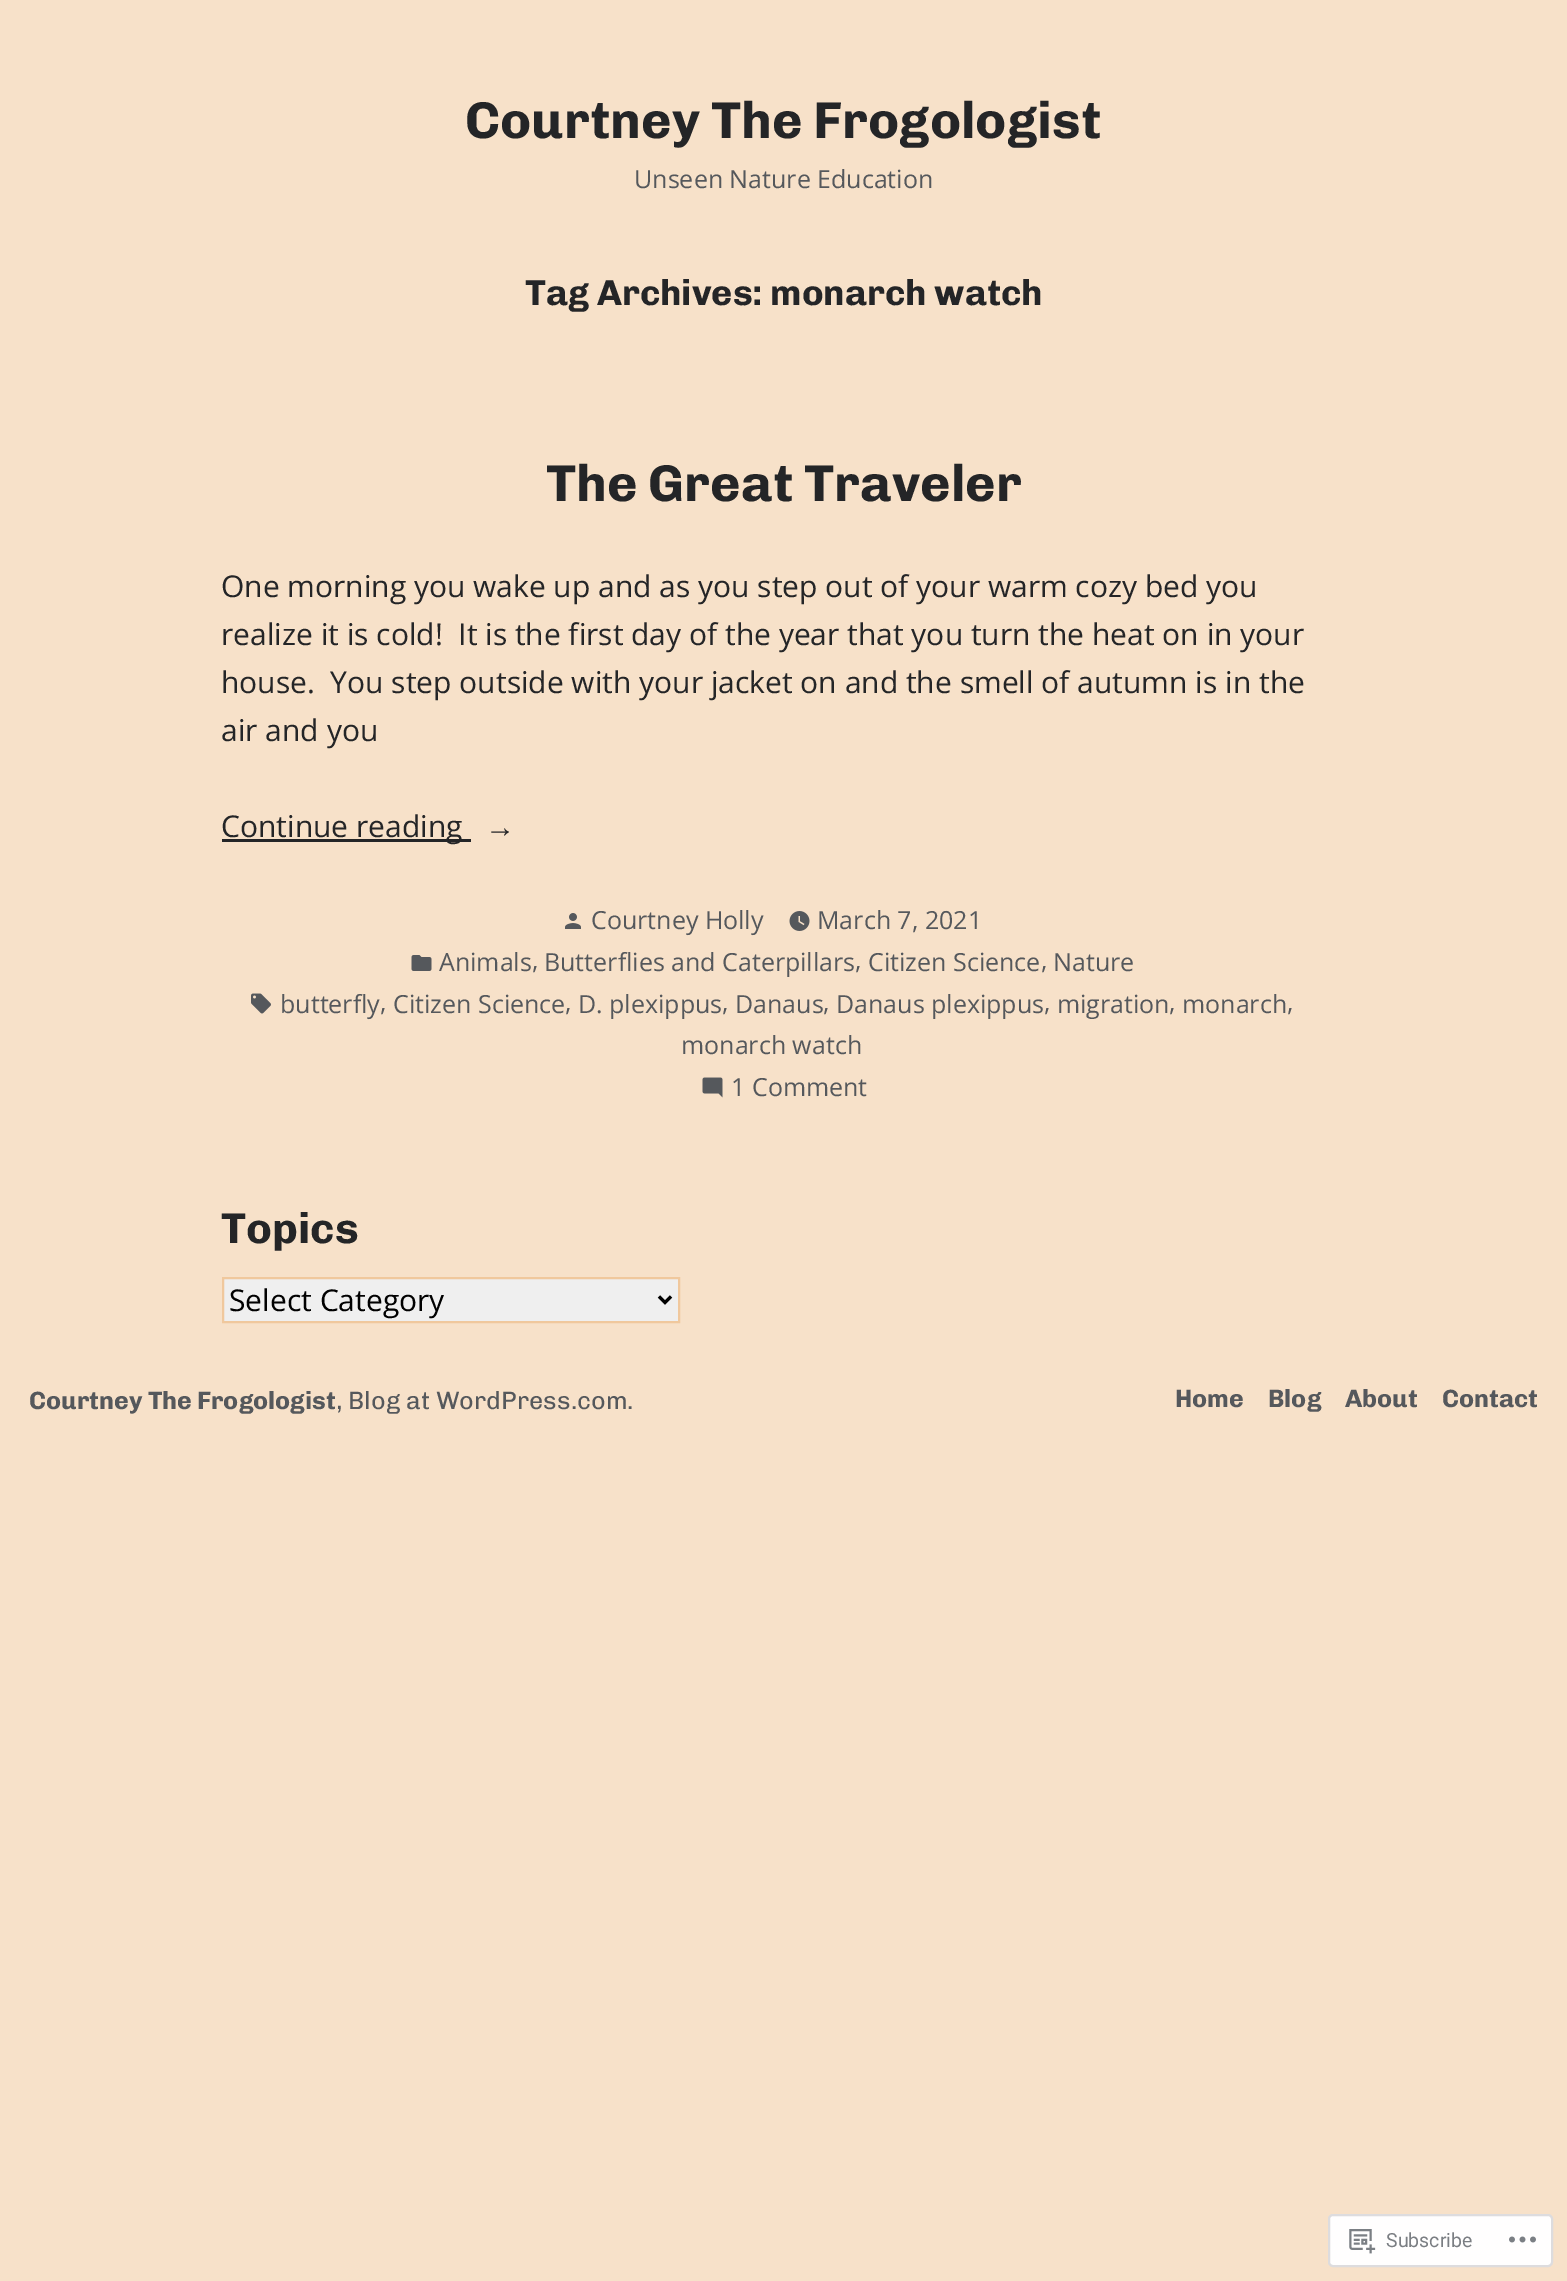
%!PS
<< /PageSize [1567 2281] >> setpagedevice
/mt/moveto load def
/li/lineto load def
/cp/closepath load def
/fl/fill load def
/st/stroke load def
/gs/gsave load def
/gr/grestore load def
/lw/setlinewidth load def
/co { dup -16 bitshift 255 div exch dup -8 bitshift 255 and 255 div exch 255 and 255 div setrgbcolor } def
/fn { [ exch dup neg 0 0 3 -1 roll 0 0 ] selectfont } def
/tx { co fn moveto show } def
/bx { co rectfill } def
/rr { 5 dict begin { /r /h /w /y /x } { exch def } forall
  x r add y moveto x w add y 2 copy h add r arct x w add y h add x 1 index r arct
  x y h add x y r arct x y 2 copy exch w add exch r arct closepath end } def
/im { 5 dict begin { /h /w /y /x /name } { exch def } forall
  gsave x y translate w h scale
  w h 8 [w 0 0 h 0 0] name (r) file false 3 colorimage grestore end } def
0 2281 translate 1 -1 scale
4 setmiterlimit
0 0 1567 2281 16#F7E1C9 bx
222 839 249 3 16#242527 bx
(media/1.raw) 565 913 16 16 im
(media/2.raw) 789 911 21 20 im
(media/3.raw) 411 955 21 16 im
(media/4.raw) 251 993 20 21 im
(media/5.raw) 702 1077 21 21 im
16#EFEFEF co
223 1278 mt 679 1278 li 679 1322 li 223 1322 li cp gs fl gr
16#F0C89D co
2 lw
st
16#000000 co
3 lw
659 1296.5 mt 665 1302.5 li 671 1296.5 li st
16#FFFEFE co
1329 2215 223 51 4 rr gs fl gr
16#DDDCDE co
2 lw
st
(media/6.raw) 1349 2229 27 25 im
(media/7.raw) 1509 2236 27 7 im
(Courtney The Frogologist) 465 138 /Chivo-Bold 51.8 16#242527 tx
(Unseen Nature Education) 634 188 /OpenSans-Regular 25 16#55585C tx
(Tag Archives: monarch watch) 525 305 /Chivo-Bold 36 16#242527 tx
(The Great Traveler) 546 501 /Chivo-Bold 51.8 16#242527 tx
(One morning you wake up and as you step out of your warm cozy bed you) 221 597 /OpenSans-Regular 30 16#242527 tx
(realize it is cold!  It is the first day of the year that you turn the heat on in your) 221 645 /OpenSans-Regular 30 16#242527 tx
(house.  You step outside with your jacket on and the smell of autumn is in the) 221 693 /OpenSans-Regular 30 16#242527 tx
(air and you) 221 741 /OpenSans-Regular 30 16#242527 tx
(Continue reading) 221 837 /OpenSans-Regular 30 16#242527 tx
(→) 485 837 /LiberationSerif-Regular 30 16#242527 tx
(Courtney Holly) 591 929 /OpenSans-Regular 25 16#55585C tx
(March 7, 2021) 817 929 /OpenSans-Regular 25 16#55585C tx
(Animals) 439 971 /OpenSans-Regular 25 16#55585C tx
(,) 532 969 /OpenSans-Regular 25 16#55585C tx
(Butterflies and Caterpillars) 544 971 /OpenSans-Regular 25 16#55585C tx
(,) 855 969 /OpenSans-Regular 25 16#55585C tx
(Citizen Science) 868 971 /OpenSans-Regular 25 16#55585C tx
(,) 1041 969 /OpenSans-Regular 25 16#55585C tx
(Nature) 1053 971 /OpenSans-Regular 25 16#55585C tx
(butterfly) 280 1013 /OpenSans-Regular 25 16#55585C tx
(,) 380 1011 /OpenSans-Regular 25 16#55585C tx
(Citizen Science) 393 1013 /OpenSans-Regular 25 16#55585C tx
(,) 565 1011 /OpenSans-Regular 25 16#55585C tx
(D. plexippus) 578 1013 /OpenSans-Regular 25 16#55585C tx
(,) 722 1011 /OpenSans-Regular 25 16#55585C tx
(Danaus) 735 1013 /OpenSans-Regular 25 16#55585C tx
(,) 823 1011 /OpenSans-Regular 25 16#55585C tx
(Danaus plexippus) 836 1013 /OpenSans-Regular 25 16#55585C tx
(,) 1044 1011 /OpenSans-Regular 25 16#55585C tx
(migration) 1057 1013 /OpenSans-Regular 25 16#55585C tx
(,) 1169 1011 /OpenSans-Regular 25 16#55585C tx
(monarch) 1182 1013 /OpenSans-Regular 25 16#55585C tx
(,) 1287 1011 /OpenSans-Regular 25 16#55585C tx
(monarch watch) 681 1054 /OpenSans-Regular 25 16#55585C tx
(1 Comment) 731 1096 /OpenSans-Regular 25 16#55585C tx
(Topics) 221 1243 /Chivo-Bold 43 16#242527 tx
(Select Category) 229 1311 /OpenSans-Regular 30 16#000000 tx
(Courtney The Frogologist) 29 1409 /Chivo-Bold 25 16#55585C tx
(, Blog at WordPress.com.) 336 1409 /Chivo-Regular 25 16#55585C tx
(Home) 1175 1407 /Chivo-Bold 25 16#55585C tx
(Blog) 1268 1407 /Chivo-Bold 25 16#55585C tx
(About) 1345 1407 /Chivo-Bold 25 16#55585C tx
(Contact) 1442 1407 /Chivo-Bold 25 16#55585C tx
(Subscribe) 1386 2247 /Roboto-Regular 19.5 16#7B7E83 tx
showpage
